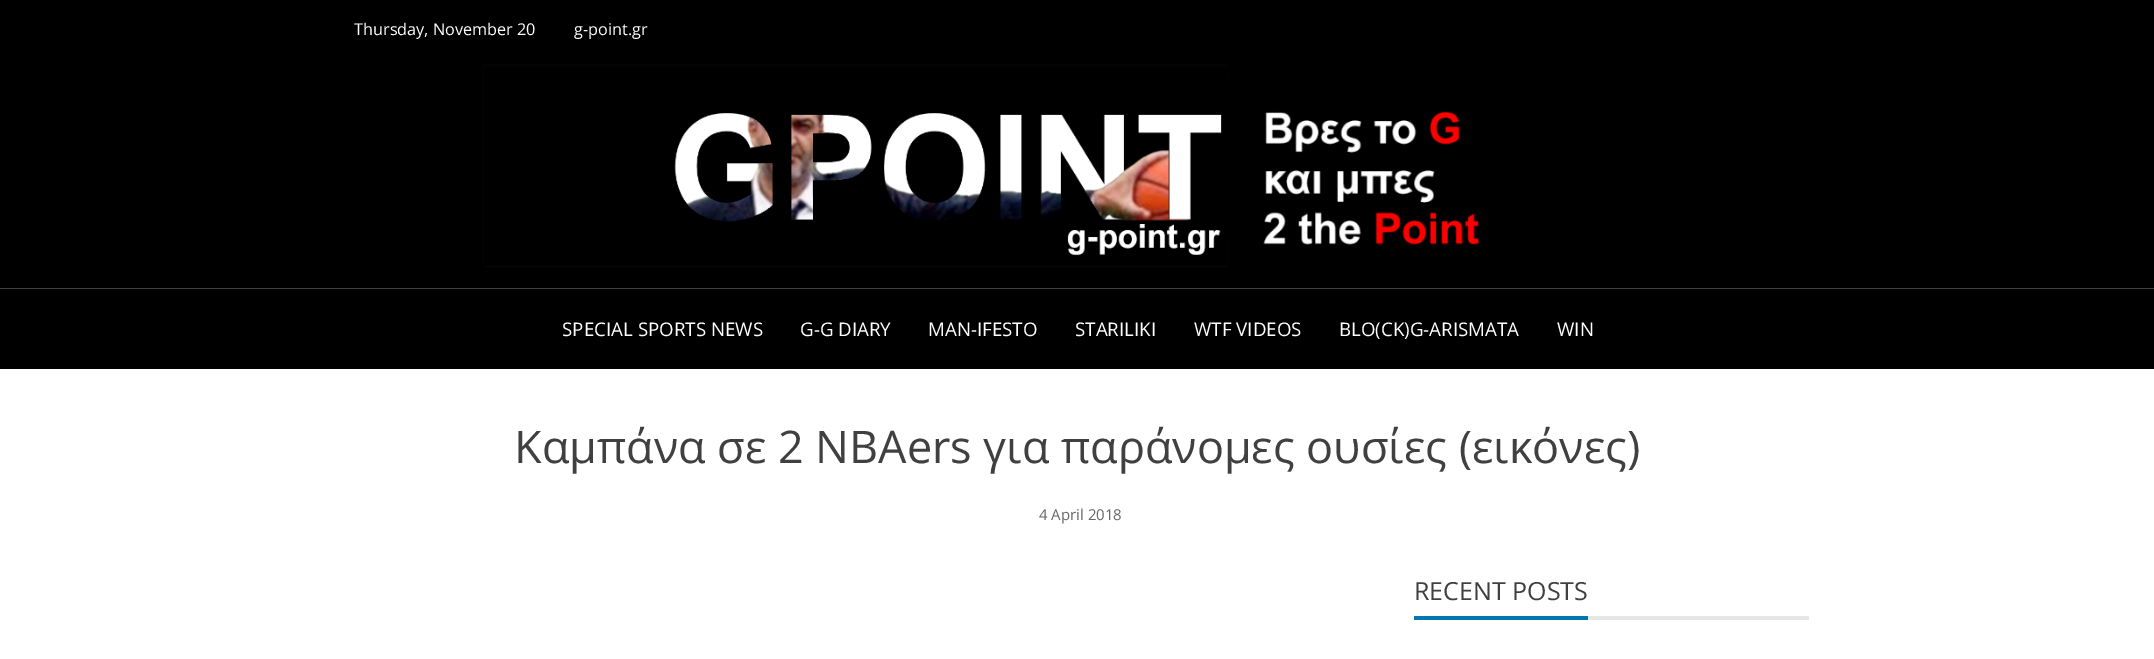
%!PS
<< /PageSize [2154 659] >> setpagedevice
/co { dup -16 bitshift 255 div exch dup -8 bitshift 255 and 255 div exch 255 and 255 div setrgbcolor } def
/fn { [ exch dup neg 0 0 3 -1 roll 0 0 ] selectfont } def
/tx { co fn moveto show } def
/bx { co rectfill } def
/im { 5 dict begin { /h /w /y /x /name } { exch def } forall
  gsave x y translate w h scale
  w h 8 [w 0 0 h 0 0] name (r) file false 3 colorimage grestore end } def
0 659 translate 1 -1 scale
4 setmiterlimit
0 0 2154 659 16#FFFFFF bx
0 0 2154 59 16#000000 bx
(media/1.raw) 0 59 2154 230 im
0 289 2154 80 16#000000 bx
1588 616 221 4 16#E6E6E6 bx
1414 616 174 4 16#0078AF bx
(Thursday, November 20) 354 35 /OpenSans-Regular 16.25 16#FFFFFF tx
(g-point.gr) 574 35 /OpenSans-Regular 16.25 16#FFFFFF tx
(SPECIAL SPORTS NEWS) 562 336 /OpenSans-Regular 18.75 16#FFFFFF tx
(G-G DIARY) 800 336 /OpenSans-Regular 18.75 16#FFFFFF tx
(MAN-IFESTO) 928 336 /OpenSans-Regular 18.75 16#FFFFFF tx
(STARILIKI) 1075 336 /OpenSans-Regular 18.75 16#FFFFFF tx
(WTF VIDEOS) 1194 336 /OpenSans-Regular 18.75 16#FFFFFF tx
(BLO\(CK\)G-ARISMATA) 1339 336 /OpenSans-Regular 18.75 16#FFFFFF tx
(WIN) 1557 336 /OpenSans-Regular 18.75 16#FFFFFF tx
(Καμπάνα σε 2 NBAers για παράνομες ουσίες \(εικόνες\)) 514 463 /OpenSans-Regular 45 16#404040 tx
(4 April 2018) 1039 520 /OpenSans-Regular 15 16#666666 tx
(RECENT POSTS) 1414 600 /OpenSans-Regular 25 16#404040 tx
showpage
